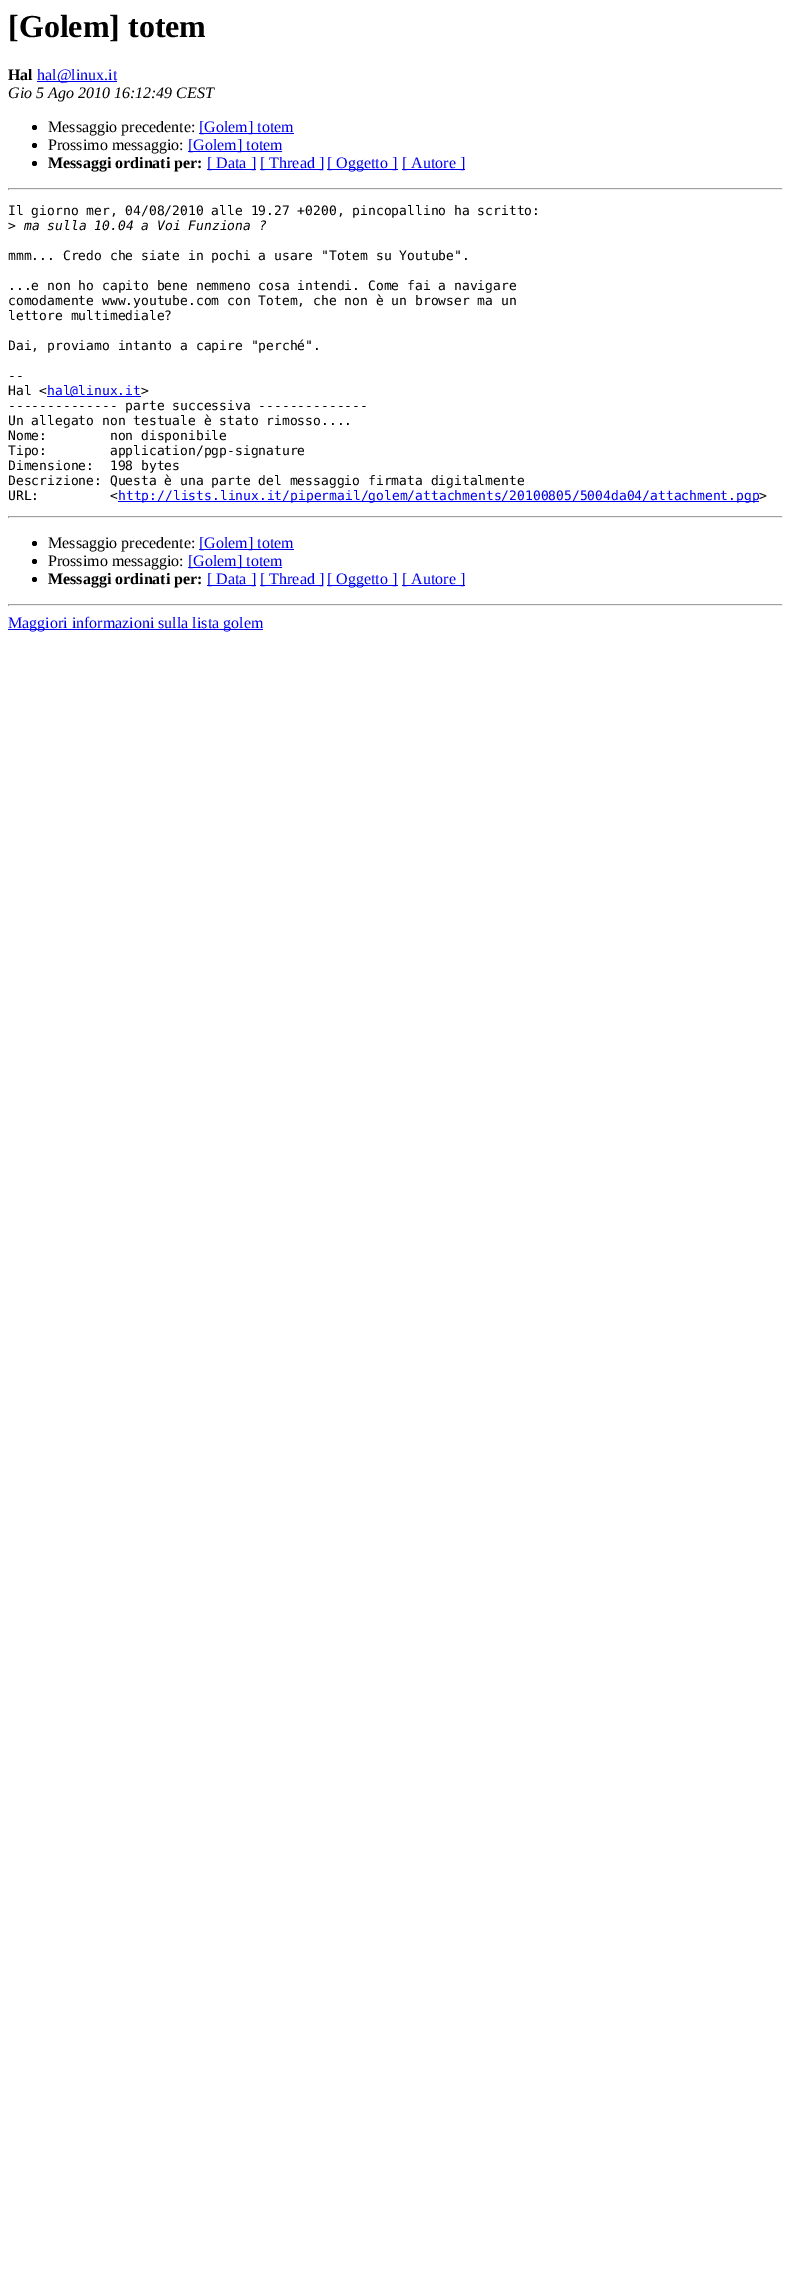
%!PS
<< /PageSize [791 2288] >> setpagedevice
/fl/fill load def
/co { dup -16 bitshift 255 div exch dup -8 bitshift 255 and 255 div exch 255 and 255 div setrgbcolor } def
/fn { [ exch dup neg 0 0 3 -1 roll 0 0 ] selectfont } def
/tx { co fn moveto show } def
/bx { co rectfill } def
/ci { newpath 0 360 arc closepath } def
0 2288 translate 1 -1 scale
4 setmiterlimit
0 0 791 2288 16#FFFFFF bx
37 81 80 1 16#0000EE bx
16#000000 co
34.5 127.5 2.5 ci fl
199 133 95 1 16#0000EE bx
16#000000 co
34.5 145.5 2.5 ci fl
188 151 94 1 16#0000EE bx
16#000000 co
34.5 163.5 2.5 ci fl
207 169 49 1 16#0000EE bx
260 169 63 1 16#0000EE bx
327 169 71 1 16#0000EE bx
402 169 63 1 16#0000EE bx
8 188 775 1 16#9F9F9F bx
782 188 1 2 16#EEEEEE bx
8 189 775 1 16#EEEEEE bx
8 188 1 2 16#9F9F9F bx
47 396 94 1 16#0000EE bx
118 501 641 1 16#0000EE bx
8 516 775 1 16#9F9F9F bx
782 516 1 2 16#EEEEEE bx
8 517 775 1 16#EEEEEE bx
8 516 1 2 16#9F9F9F bx
16#000000 co
34.5 543.5 2.5 ci fl
199 549 95 1 16#0000EE bx
16#000000 co
34.5 561.5 2.5 ci fl
188 567 94 1 16#0000EE bx
16#000000 co
34.5 579.5 2.5 ci fl
207 585 49 1 16#0000EE bx
260 585 63 1 16#0000EE bx
327 585 71 1 16#0000EE bx
402 585 63 1 16#0000EE bx
8 604 775 1 16#9F9F9F bx
782 604 1 2 16#EEEEEE bx
8 605 775 1 16#EEEEEE bx
8 604 1 2 16#9F9F9F bx
8 629 255 1 16#0000EE bx
([Golem] totem) 8 37 /LiberationSerif-Bold 32 16#000000 tx
(Hal) 8 80 /LiberationSerif-Bold 16 16#000000 tx
(hal@linux.it) 37 80 /LiberationSerif-Regular 16 16#0000EE tx
(Gio 5 Ago 2010 16:12:49 CEST) 8 98 /LiberationSerif-Italic 16 16#000000 tx
(Messaggio precedente:) 48 132 /LiberationSerif-Regular 16 16#000000 tx
([Golem] totem) 199 132 /LiberationSerif-Regular 16 16#0000EE tx
(Prossimo messaggio:) 48 150 /LiberationSerif-Regular 16 16#000000 tx
([Golem] totem) 188 150 /LiberationSerif-Regular 16 16#0000EE tx
(Messaggi ordinati per:) 48 168 /LiberationSerif-Bold 16 16#000000 tx
([ Data ]) 207 168 /LiberationSerif-Regular 16 16#0000EE tx
([ Thread ]) 260 168 /LiberationSerif-Regular 16 16#0000EE tx
([ Oggetto ]) 327 168 /LiberationSerif-Regular 16 16#0000EE tx
([ Autore ]) 402 168 /LiberationSerif-Regular 16 16#0000EE tx
(Il giorno mer, 04/08/2010 alle 19.27 +0200, pincopallino ha scritto:) 8 215 /DejaVuSansMono-Regular 13 16#000000 tx
(>) 8 230 /DejaVuSansMono-Regular 13 16#000000 tx
(ma sulla 10.04 a Voi Funziona ?) 24 230 /DejaVuSansMono-Italic 13 16#000000 tx
(mmm... Credo che siate in pochi a usare "Totem su Youtube".) 8 260 /DejaVuSansMono-Regular 13 16#000000 tx
(...e non ho capito bene nemmeno cosa intendi. Come fai a navigare) 8 290 /DejaVuSansMono-Regular 13 16#000000 tx
(comodamente www.youtube.com con Totem, che non è un browser ma un) 8 305 /DejaVuSansMono-Regular 13 16#000000 tx
(lettore multimediale?) 8 320 /DejaVuSansMono-Regular 13 16#000000 tx
(Dai, proviamo intanto a capire "perché".) 8 350 /DejaVuSansMono-Regular 13 16#000000 tx
(--) 8 380 /DejaVuSansMono-Regular 13 16#000000 tx
(Hal <) 8 395 /DejaVuSansMono-Regular 13 16#000000 tx
(hal@linux.it) 47 395 /DejaVuSansMono-Regular 13 16#0000EE tx
(>) 141 395 /DejaVuSansMono-Regular 13 16#000000 tx
(-------------- parte successiva --------------) 8 410 /DejaVuSansMono-Regular 13 16#000000 tx
(Un allegato non testuale è stato rimosso....) 8 425 /DejaVuSansMono-Regular 13 16#000000 tx
(Nome:        non disponibile) 8 440 /DejaVuSansMono-Regular 13 16#000000 tx
(Tipo:        application/pgp-signature) 8 455 /DejaVuSansMono-Regular 13 16#000000 tx
(Dimensione:  198 bytes) 8 470 /DejaVuSansMono-Regular 13 16#000000 tx
(Descrizione: Questa è una parte del messaggio firmata digitalmente) 8 485 /DejaVuSansMono-Regular 13 16#000000 tx
(URL:         <) 8 500 /DejaVuSansMono-Regular 13 16#000000 tx
(http://lists.linux.it/pipermail/golem/attachments/20100805/5004da04/attachment.pgp) 118 500 /DejaVuSansMono-Regular 13 16#0000EE tx
(>) 759 500 /DejaVuSansMono-Regular 13 16#000000 tx
(Messaggio precedente:) 48 548 /LiberationSerif-Regular 16 16#000000 tx
([Golem] totem) 199 548 /LiberationSerif-Regular 16 16#0000EE tx
(Prossimo messaggio:) 48 566 /LiberationSerif-Regular 16 16#000000 tx
([Golem] totem) 188 566 /LiberationSerif-Regular 16 16#0000EE tx
(Messaggi ordinati per:) 48 584 /LiberationSerif-Bold 16 16#000000 tx
([ Data ]) 207 584 /LiberationSerif-Regular 16 16#0000EE tx
([ Thread ]) 260 584 /LiberationSerif-Regular 16 16#0000EE tx
([ Oggetto ]) 327 584 /LiberationSerif-Regular 16 16#0000EE tx
([ Autore ]) 402 584 /LiberationSerif-Regular 16 16#0000EE tx
(Maggiori informazioni sulla lista golem) 8 628 /LiberationSerif-Regular 16 16#0000EE tx
showpage
